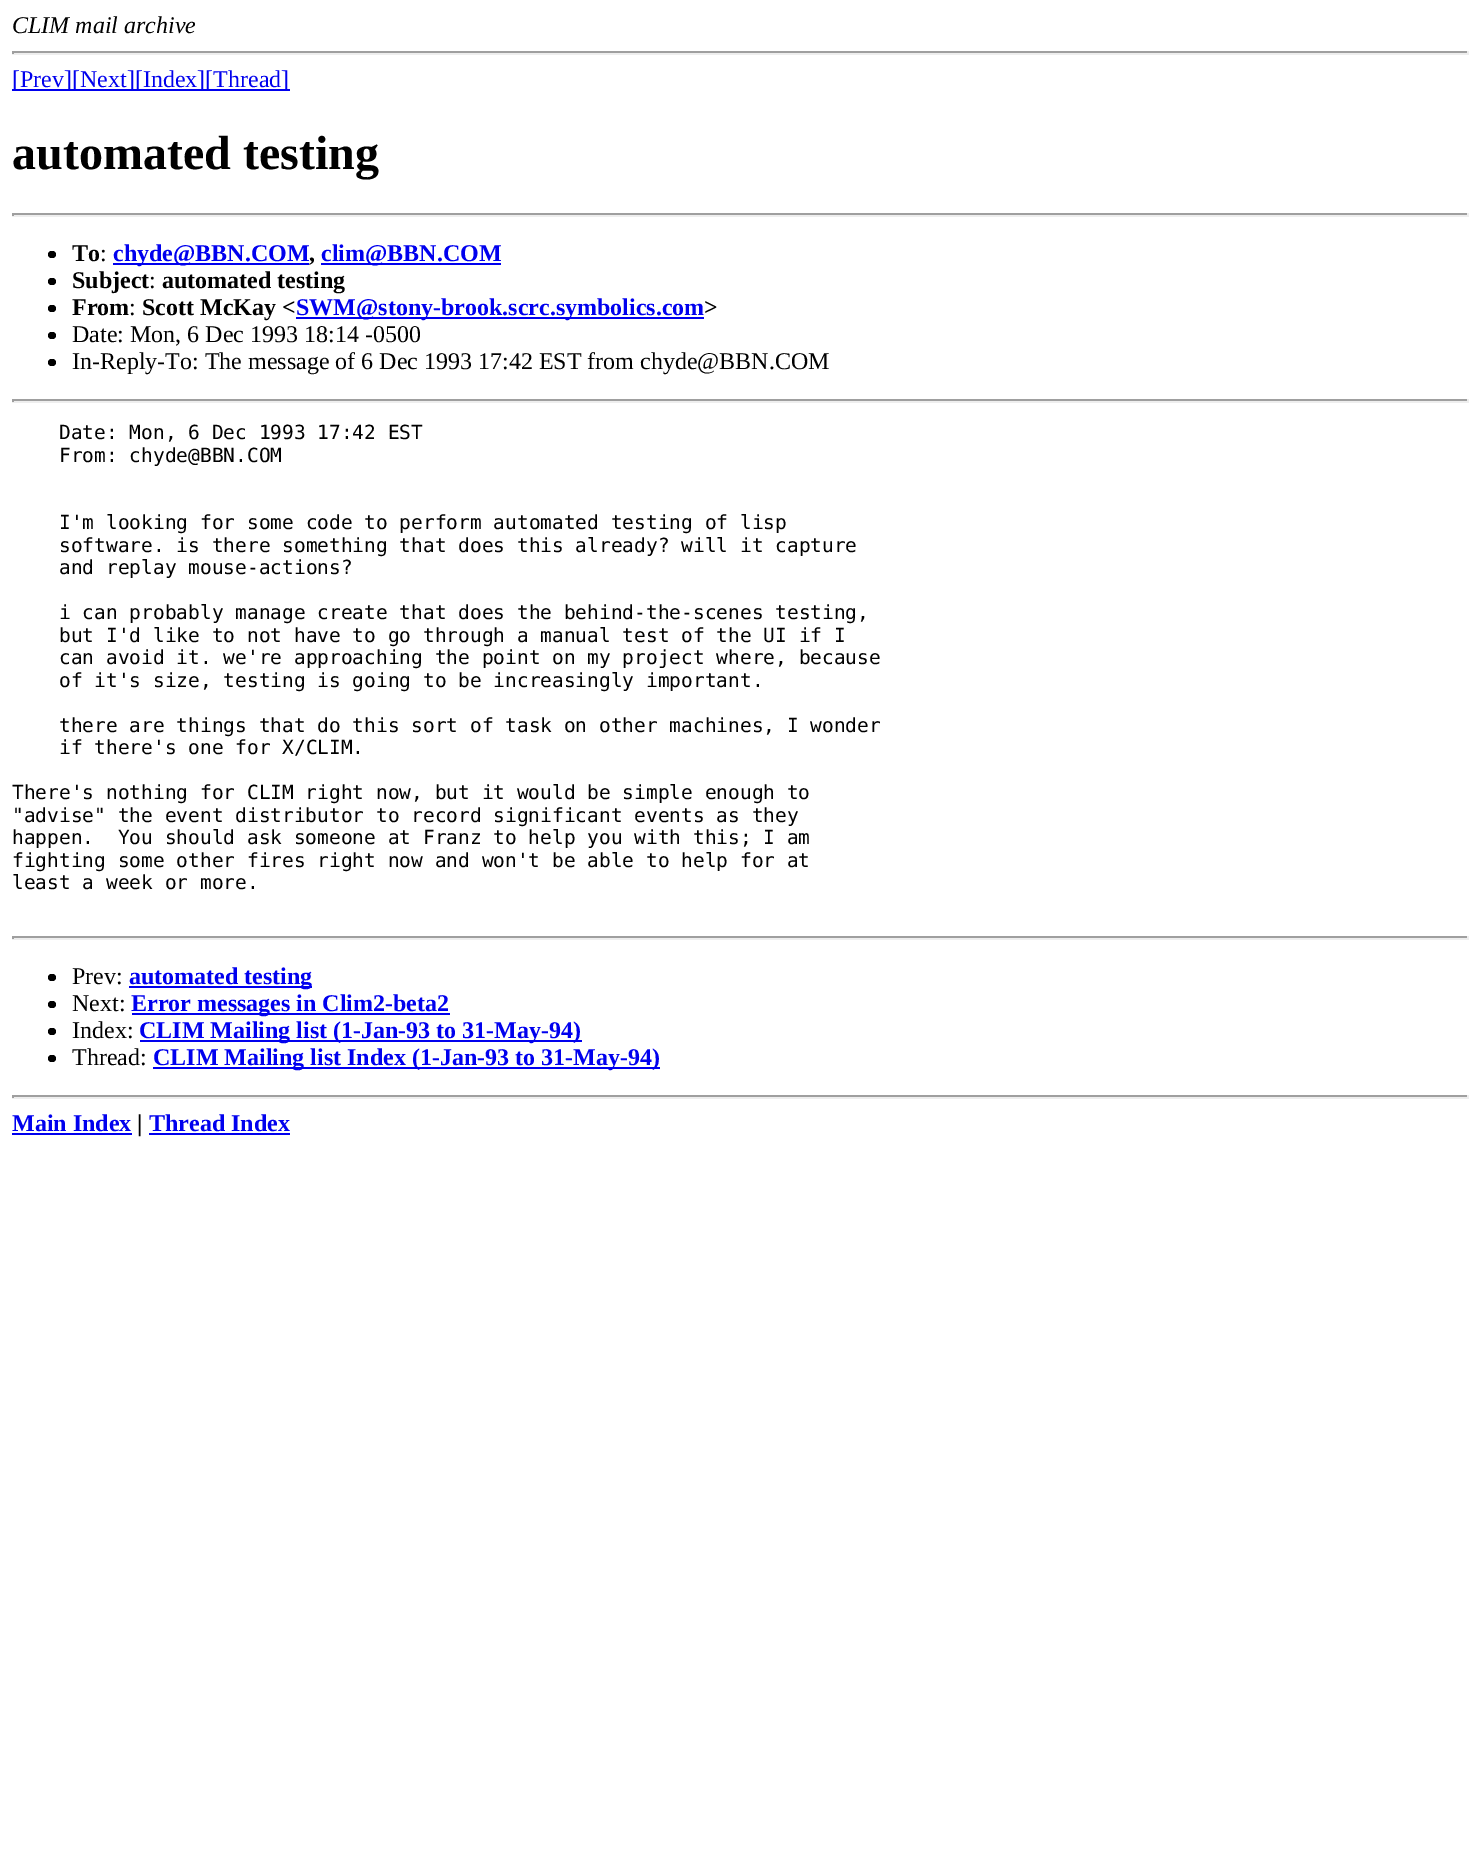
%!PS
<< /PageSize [1480 1855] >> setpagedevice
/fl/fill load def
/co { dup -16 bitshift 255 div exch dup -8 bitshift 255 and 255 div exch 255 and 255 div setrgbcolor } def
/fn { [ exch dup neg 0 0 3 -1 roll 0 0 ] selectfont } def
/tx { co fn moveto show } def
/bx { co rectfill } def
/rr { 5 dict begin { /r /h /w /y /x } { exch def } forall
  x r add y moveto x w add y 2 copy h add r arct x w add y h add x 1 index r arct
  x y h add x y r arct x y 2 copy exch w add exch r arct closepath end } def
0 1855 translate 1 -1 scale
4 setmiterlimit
0 0 1480 1855 16#FFFFFF bx
12 51 1457 2 16#9F9F9F bx
1467 51 2 3 16#EEEEEE bx
12 53 1457 2 16#EEEEEE bx
12 51 2 3 16#9F9F9F bx
12 89 278 2 16#0000EE bx
12 213 1457 2 16#9F9F9F bx
1467 213 2 3 16#EEEEEE bx
12 215 1457 2 16#EEEEEE bx
12 213 2 3 16#9F9F9F bx
16#000000 co
48 251 8 7 3.5 rr fl
113 263 196 2 16#0000EE bx
321 263 180 2 16#0000EE bx
16#000000 co
48 278 8 7 3.5 rr fl
48 305 8 7 3.5 rr fl
296 317 408 2 16#0000EE bx
16#000000 co
48 332 8 7 3.5 rr fl
48 359 8 7 3.5 rr fl
12 399 1457 2 16#9F9F9F bx
1467 399 2 3 16#EEEEEE bx
12 401 1457 2 16#EEEEEE bx
12 399 2 3 16#9F9F9F bx
12 936 1457 2 16#9F9F9F bx
1467 936 2 3 16#EEEEEE bx
12 938 1457 2 16#EEEEEE bx
12 936 2 3 16#9F9F9F bx
16#000000 co
48 974 8 7 3.5 rr fl
129 986 183 2 16#0000EE bx
16#000000 co
48 1001 8 7 3.5 rr fl
132 1013 318 2 16#0000EE bx
16#000000 co
48 1028 8 7 3.5 rr fl
140 1040 442 2 16#0000EE bx
16#000000 co
48 1055 8 7 3.5 rr fl
153 1067 507 2 16#0000EE bx
12 1095 1457 2 16#9F9F9F bx
1467 1095 2 3 16#EEEEEE bx
12 1097 1457 2 16#EEEEEE bx
12 1095 2 3 16#9F9F9F bx
12 1133 120 2 16#0000EE bx
149 1133 141 2 16#0000EE bx
(CLIM mail archive) 12 33 /LiberationSerif-Italic 24 16#000000 tx
([Prev][Next][Index][Thread]) 12 87 /LiberationSerif-Regular 24 16#0000EE tx
(automated testing) 12 169 /LiberationSerif-Bold 48 16#000000 tx
(To) 72 261 /LiberationSerif-Bold 24 16#000000 tx
(:) 100 261 /LiberationSerif-Regular 24 16#000000 tx
(chyde@BBN.COM) 113 261 /LiberationSerif-Bold 24 16#0000EE tx
(clim@BBN.COM) 321 261 /LiberationSerif-Bold 24 16#0000EE tx
(,) 309 261 /LiberationSerif-Bold 24 16#000000 tx
(Subject) 72 288 /LiberationSerif-Bold 24 16#000000 tx
(:) 149 288 /LiberationSerif-Regular 24 16#000000 tx
(automated testing) 162 288 /LiberationSerif-Bold 24 16#000000 tx
(From) 72 315 /LiberationSerif-Bold 24 16#000000 tx
(:) 129 315 /LiberationSerif-Regular 24 16#000000 tx
(Scott McKay <) 142 315 /LiberationSerif-Bold 24 16#000000 tx
(SWM@stony-brook.scrc.symbolics.com) 296 315 /LiberationSerif-Bold 24 16#0000EE tx
(>) 704 315 /LiberationSerif-Bold 24 16#000000 tx
(Date: Mon, 6 Dec 1993 18:14 -0500) 72 342 /LiberationSerif-Regular 24 16#000000 tx
(In-Reply-To: The message of 6 Dec 1993 17:42 EST from chyde@BBN.COM) 72 369 /LiberationSerif-Regular 24 16#000000 tx
(Date: Mon, 6 Dec 1993 17:42 EST) 59 439 /DejaVuSansMono-Regular 19.5 16#000000 tx
(From: chyde@BBN.COM) 59 462 /DejaVuSansMono-Regular 19.5 16#000000 tx
(I'm looking for some code to perform automated testing of lisp) 59 529 /DejaVuSansMono-Regular 19.5 16#000000 tx
(software. is there something that does this already? will it capture) 59 552 /DejaVuSansMono-Regular 19.5 16#000000 tx
(and replay mouse-actions?) 59 574 /DejaVuSansMono-Regular 19.5 16#000000 tx
(i can probably manage create that does the behind-the-scenes testing,) 59 619 /DejaVuSansMono-Regular 19.5 16#000000 tx
(but I'd like to not have to go through a manual test of the UI if I) 59 642 /DejaVuSansMono-Regular 19.5 16#000000 tx
(can avoid it. we're approaching the point on my project where, because) 59 664 /DejaVuSansMono-Regular 19.5 16#000000 tx
(of it's size, testing is going to be increasingly important.) 59 687 /DejaVuSansMono-Regular 19.5 16#000000 tx
(there are things that do this sort of task on other machines, I wonder) 59 732 /DejaVuSansMono-Regular 19.5 16#000000 tx
(if there's one for X/CLIM.) 59 754 /DejaVuSansMono-Regular 19.5 16#000000 tx
(There's nothing for CLIM right now, but it would be simple enough to) 12 799 /DejaVuSansMono-Regular 19.5 16#000000 tx
("advise" the event distributor to record significant events as they) 12 822 /DejaVuSansMono-Regular 19.5 16#000000 tx
(happen.  You should ask someone at Franz to help you with this; I am) 12 844 /DejaVuSansMono-Regular 19.5 16#000000 tx
(fighting some other fires right now and won't be able to help for at) 12 867 /DejaVuSansMono-Regular 19.5 16#000000 tx
(least a week or more.) 12 889 /DejaVuSansMono-Regular 19.5 16#000000 tx
(Prev:) 72 984 /LiberationSerif-Regular 24 16#000000 tx
(automated testing) 129 984 /LiberationSerif-Bold 24 16#0000EE tx
(Next:) 72 1011 /LiberationSerif-Regular 24 16#000000 tx
(Error messages in Clim2-beta2) 131 1011 /LiberationSerif-Bold 24 16#0000EE tx
(Index:) 72 1038 /LiberationSerif-Regular 24 16#000000 tx
(CLIM Mailing list \(1-Jan-93 to 31-May-94\)) 139 1038 /LiberationSerif-Bold 24 16#0000EE tx
(Thread:) 72 1065 /LiberationSerif-Regular 24 16#000000 tx
(CLIM Mailing list Index \(1-Jan-93 to 31-May-94\)) 153 1065 /LiberationSerif-Bold 24 16#0000EE tx
(Main Index) 12 1131 /LiberationSerif-Bold 24 16#0000EE tx
(|) 137 1131 /LiberationSerif-Bold 24 16#000000 tx
(Thread Index) 149 1131 /LiberationSerif-Bold 24 16#0000EE tx
showpage
